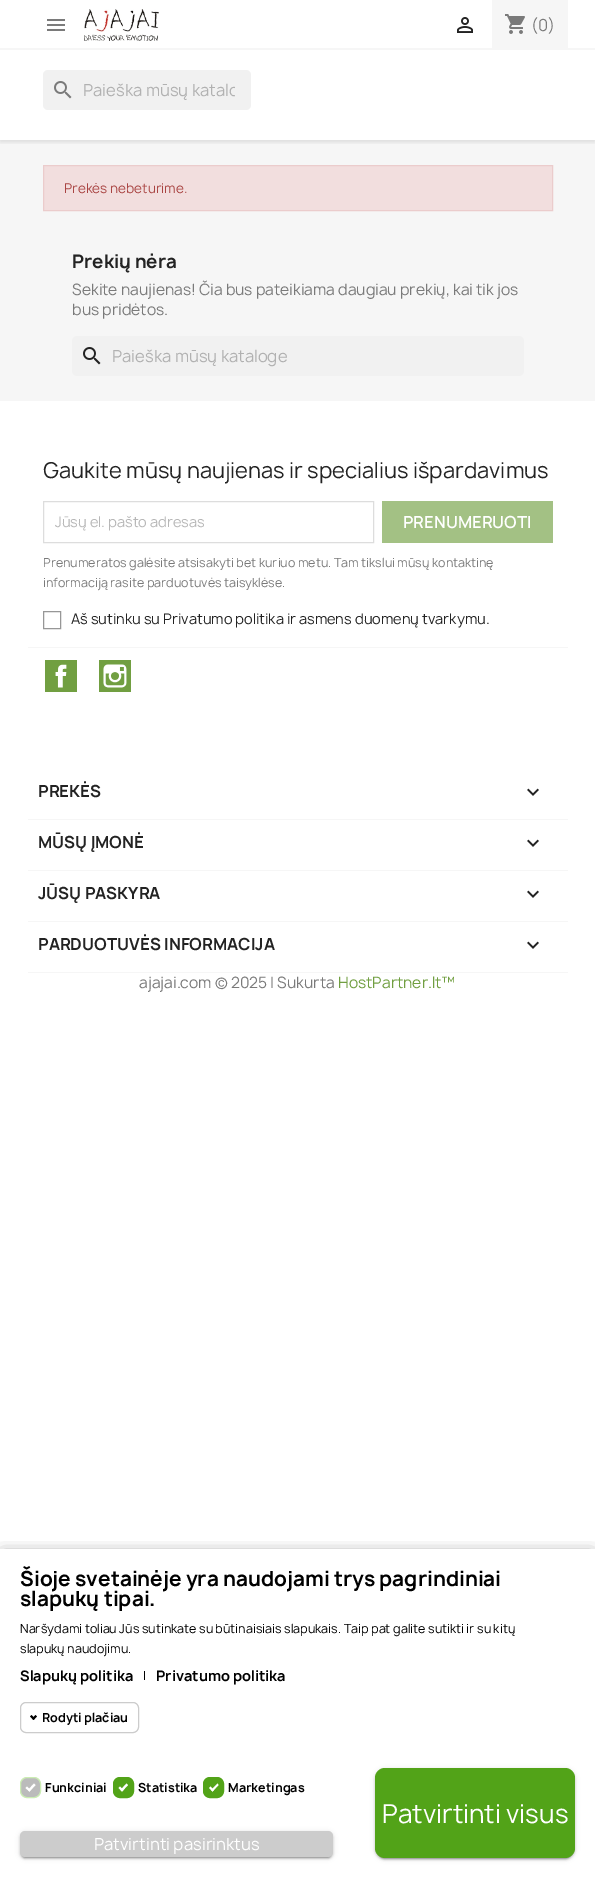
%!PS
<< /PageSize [595 1878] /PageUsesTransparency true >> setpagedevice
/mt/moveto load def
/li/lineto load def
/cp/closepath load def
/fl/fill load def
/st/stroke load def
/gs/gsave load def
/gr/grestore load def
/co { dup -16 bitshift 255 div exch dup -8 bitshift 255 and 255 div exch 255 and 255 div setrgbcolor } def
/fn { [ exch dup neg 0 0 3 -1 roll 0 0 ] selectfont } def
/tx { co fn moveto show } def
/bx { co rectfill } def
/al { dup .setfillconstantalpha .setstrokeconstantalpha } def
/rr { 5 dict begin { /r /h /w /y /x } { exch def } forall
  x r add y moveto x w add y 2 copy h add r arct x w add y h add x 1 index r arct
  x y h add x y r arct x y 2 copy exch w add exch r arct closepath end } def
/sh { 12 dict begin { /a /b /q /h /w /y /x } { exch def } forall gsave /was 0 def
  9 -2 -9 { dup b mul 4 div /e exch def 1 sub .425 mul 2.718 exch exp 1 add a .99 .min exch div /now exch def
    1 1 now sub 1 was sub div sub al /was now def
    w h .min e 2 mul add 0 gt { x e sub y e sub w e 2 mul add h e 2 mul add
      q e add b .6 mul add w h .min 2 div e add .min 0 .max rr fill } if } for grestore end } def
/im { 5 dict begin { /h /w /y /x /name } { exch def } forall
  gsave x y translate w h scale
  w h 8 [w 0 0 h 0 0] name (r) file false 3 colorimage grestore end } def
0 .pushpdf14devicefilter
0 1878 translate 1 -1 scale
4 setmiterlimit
0 0 595 1878 16#FFFFFF bx
0 140 595 261 16#F6F6F6 bx
gs
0 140 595 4 rectclip
16#000000 co
0 2 595 140 0 2.5 .11 sh
gr
0 48 595 2 16#F6F6F6 bx
(media/1.raw) 47 19 18 12 im
(media/2.raw) 84 9 75 32 im
(media/3.raw) 457 17 16 16 im
492 0 76 48 16#F6F6F6 bx
(media/4.raw) 505 14 20 20 im
16#F1F1F1 co
43 70 208 40 5 rr fl
(media/5.raw) 54 81 18 18 im
16#F2DEDE co
43.5 165.5 mt 552.5 165.5 li 552.5 210.5 li 43.5 210.5 li cp gs fl gr
16#EBCCCC co
st
16#F1F1F1 co
72 336 452 40 5 rr fl
(media/6.raw) 83 347 18 18 im
28 647 540 1 16#F6F6F6 bx
16#DDDDDD co
43.5 501.5 330 41 rectstroke
382 501 171 42 16#A3C184 bx
16#979797 co
43.5 611.5 17 17 rectstroke
45 660 32 32 16#719F41 bx
(media/7.raw) 55 664 12 24 im
99 660 32 32 16#719F41 bx
(media/8.raw) 103 664 24 24 im
28 819 540 1 16#F6F6F6 bx
(media/9.raw) 527 788 12 8 im
28 870 540 1 16#F6F6F6 bx
(media/9.raw) 527 839 12 8 im
28 921 540 1 16#F6F6F6 bx
(media/9.raw) 527 890 12 8 im
28 972 540 1 16#F6F6F6 bx
(media/9.raw) 527 941 12 8 im
gs
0 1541 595 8 rectclip
16#000000 co
3 1554 589 323 0 7.5 .5 sh
gr
16#CCCCCC co
20.5 1702.5 118 30 5.5 rr st
16#000000 co
37 1716.5 mt 33.5 1720 li 32 1718.5 li 35.5 1715 li cp fl
35 1718.5 mt 33.5 1720 li 30 1716.5 li 31.5 1715 li cp fl
16#BBBBBB co
20.5 1777.5 20 20 6.5 rr gs fl gr
16#CBEDB3 co
st
16#FFFFFF co
34 1783.5 mt 35.5 1785 li 29.5 1791.5 li 28 1790 li cp fl
27 1786.5 mt 30.5 1790 li 29.5 1791.5 li 25.5 1788 li cp fl
16#52A318 co
113.5 1777.5 20 20 6.5 rr gs fl gr
st
16#FFFFFF co
126.5 1783.5 mt 128 1785 li 122 1791.5 li 120.5 1790 li cp fl
120 1786.5 mt 123.5 1790 li 122 1791.5 li 118.5 1788 li cp fl
16#52A318 co
203.5 1777.5 20 20 6.5 rr gs fl gr
st
16#FFFFFF co
217.5 1783.5 mt 218.5 1785 li 212.5 1791.5 li 211 1790 li cp fl
210.5 1786.5 mt 214 1790 li 212.5 1791.5 li 209 1788 li cp fl
16#000000 co
20 1832 313 26 5 2.5 .12 sh
20 1833 313 26 5 1 .14 sh
22 1836 309 22 3 .5 .2 sh
16#CCCCCC co
20 1831 313 26 5 rr fl
16#000000 co
375 1769 200 90 10 2.5 .12 sh
375 1770 200 90 10 1 .14 sh
377 1773 196 86 8 .5 .2 sh
16#52A318 co
375 1768 200 90 10 rr fl
(\(0\)) 531 31 /Manrope-Regular 16 16#7A7A7A tx
gs
83 77 152 27 rectclip
(Paieška mūsų katalo) 83 96 /Manrope-Regular 16 16#B1B1B1 tx
gr
(Prekės nebeturime.) 64 193 /Manrope-Regular 13 16#A94442 tx
(Prekių nėra) 72 268 /Manrope-Bold 18 16#232323 tx
(Sekite naujienas! Čia bus pateikiama daugiau prekių, kai tik jos) 72 295 /Manrope-Regular 15 16#7A7A7A tx
(bus pridėtos.) 72 315 /Manrope-Regular 15 16#7A7A7A tx
(Paieška mūsų kataloge) 112 362 /Manrope-Regular 16 16#B1B1B1 tx
(Gaukite mūsų naujienas ir specialius išpardavimus) 43 478 /Manrope-Regular 21 16#232323 tx
(Jūsų el. pašto adresas) 55 527 /Manrope-Regular 14 16#B7B7B7 tx
(PRENUMERUOTI) 403 528 /Manrope-SemiBold 16 16#FFFFFF tx
(Prenumeratos galėsite atsisakyti bet kuriuo metu. Tam tikslui mūsų kontaktinę) 43 567 /Manrope-Regular 12 16#7A7A7A tx
(informaciją rasite parduotuvės taisyklėse.) 43 587 /Manrope-Regular 12 16#7A7A7A tx
(Aš sutinku su Privatumo politika ir asmens duomenų tvarkymu.) 71 624 /Manrope-Regular 14 16#232323 tx
(PREKĖS) 38 797 /Manrope-Bold 16 16#232323 tx
(MŪSŲ ĮMONĖ) 38 848 /Manrope-Bold 16 16#232323 tx
(JŪSŲ PASKYRA) 38 899 /Manrope-Bold 16 16#232323 tx
(PARDUOTUVĖS INFORMACIJA) 38 950 /Manrope-Bold 16 16#232323 tx
(Šioje svetainėje yra naudojami trys pagrindiniai) 20 1586 /Manrope-Bold 20 16#000000 tx
(slapukų tipai.) 20 1606 /Manrope-Bold 20 16#000000 tx
(Naršydami toliau Jūs sutinkate su būtinaisiais slapukais. Taip pat galite sutikti ir su kitų) 20 1633 /Manrope-Regular 12 16#000000 tx
(slapukų naudojimu.) 20 1653 /Manrope-Regular 12 16#000000 tx
(Slapukų politika) 20 1681 /Manrope-Bold 14 16#000000 tx
(|) 143 1680 /Manrope-Regular 12 16#000000 tx
(Privatumo politika) 156 1681 /Manrope-Bold 14 16#000000 tx
(Rodyti plačiau) 42 1722 /Manrope-Bold 12 16#000000 tx
(Funkciniai) 45 1792 /Manrope-Bold 12 16#000000 tx
(Statistika) 138 1792 /Manrope-Bold 12 16#000000 tx
(Marketingas) 228 1792 /Manrope-Bold 12 16#000000 tx
(Patvirtinti pasirinktus) 94 1850 /Manrope-Regular 16 16#FFFFFF tx
(Patvirtinti visus) 382 1823 /Manrope-Regular 25 16#FFFFFF tx
(ajajai.com © 2025 | Sukurta) 139 988 /Manrope-Regular 15 16#7A7A7A tx
(HostPartner.lt™) 338 988 /Manrope-Regular 15 16#719F41 tx
.poppdf14devicefilter showpage
